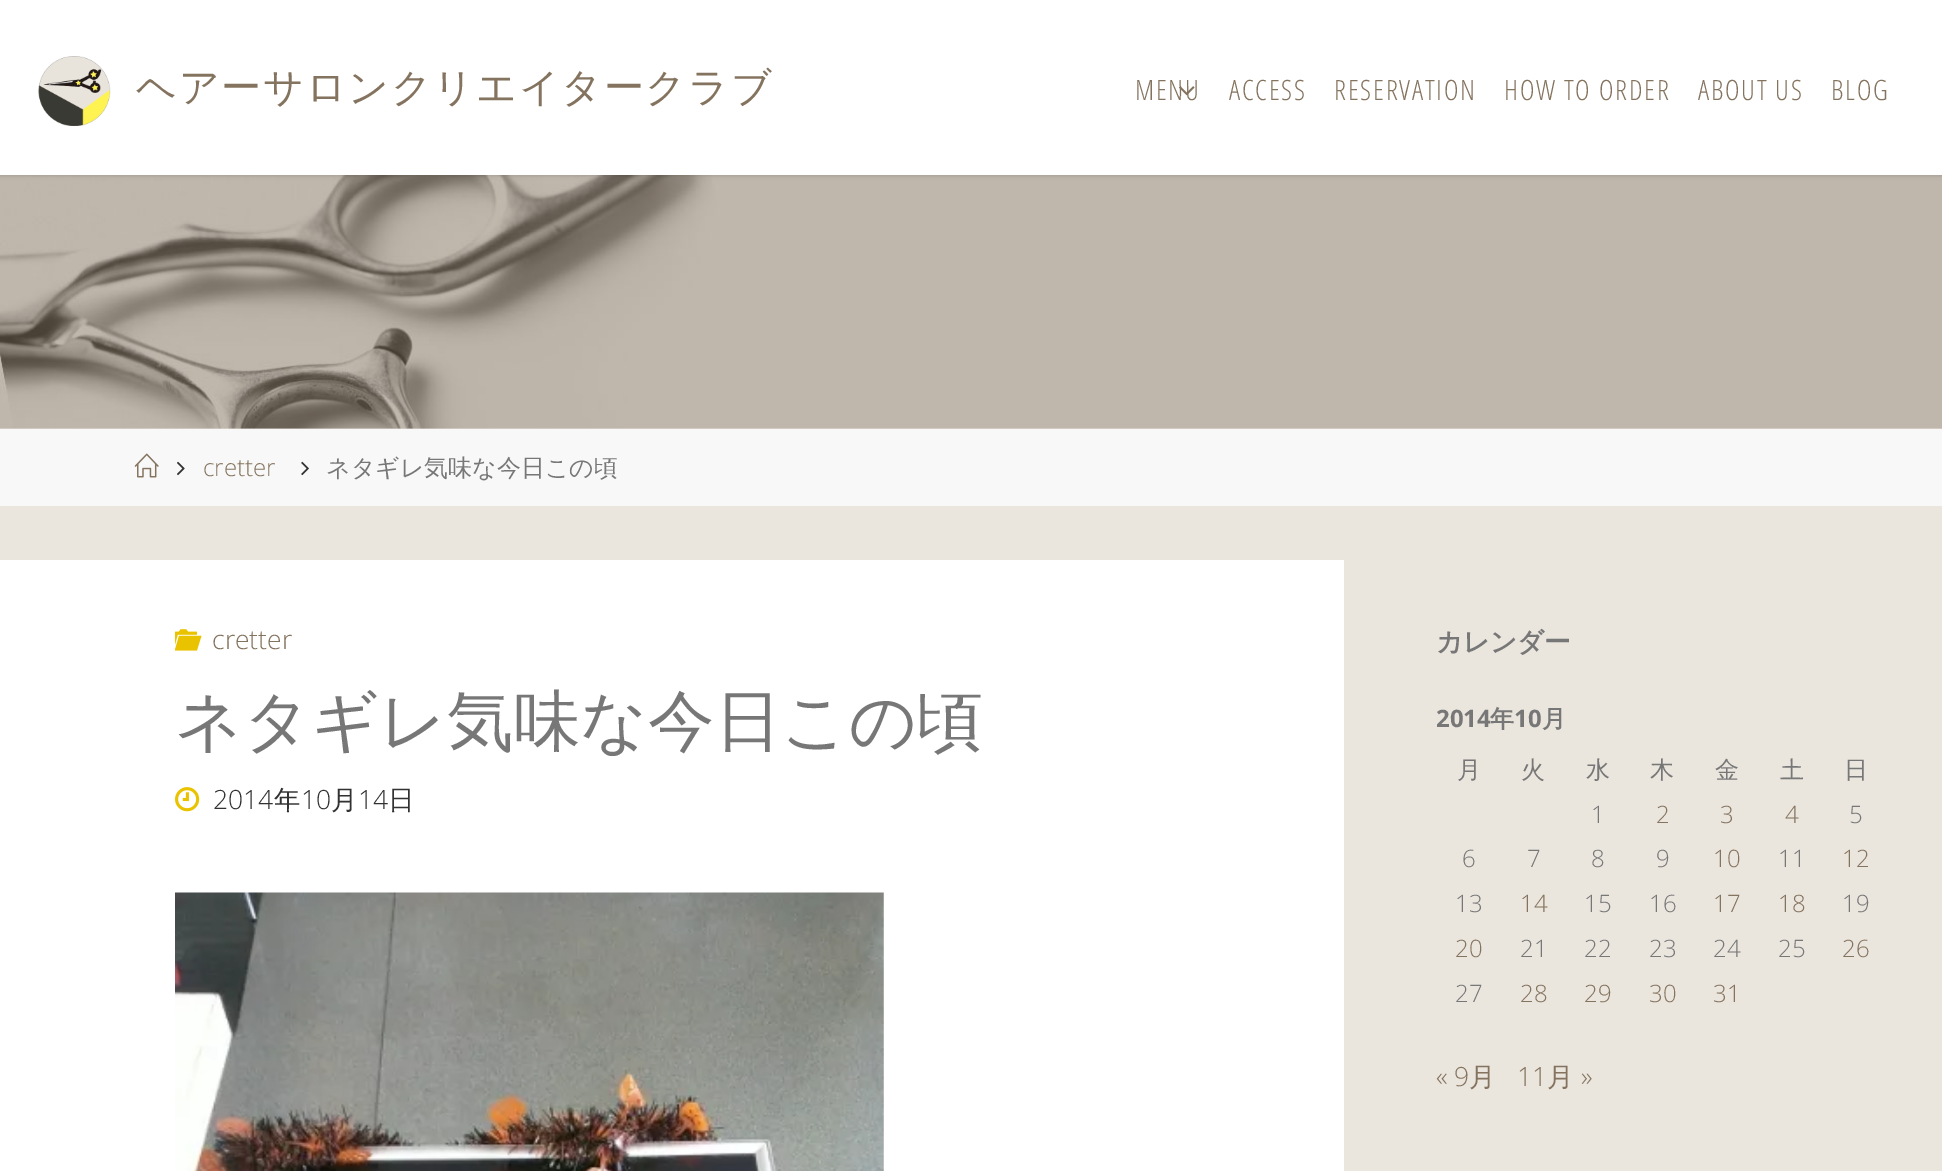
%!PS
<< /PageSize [1942 1171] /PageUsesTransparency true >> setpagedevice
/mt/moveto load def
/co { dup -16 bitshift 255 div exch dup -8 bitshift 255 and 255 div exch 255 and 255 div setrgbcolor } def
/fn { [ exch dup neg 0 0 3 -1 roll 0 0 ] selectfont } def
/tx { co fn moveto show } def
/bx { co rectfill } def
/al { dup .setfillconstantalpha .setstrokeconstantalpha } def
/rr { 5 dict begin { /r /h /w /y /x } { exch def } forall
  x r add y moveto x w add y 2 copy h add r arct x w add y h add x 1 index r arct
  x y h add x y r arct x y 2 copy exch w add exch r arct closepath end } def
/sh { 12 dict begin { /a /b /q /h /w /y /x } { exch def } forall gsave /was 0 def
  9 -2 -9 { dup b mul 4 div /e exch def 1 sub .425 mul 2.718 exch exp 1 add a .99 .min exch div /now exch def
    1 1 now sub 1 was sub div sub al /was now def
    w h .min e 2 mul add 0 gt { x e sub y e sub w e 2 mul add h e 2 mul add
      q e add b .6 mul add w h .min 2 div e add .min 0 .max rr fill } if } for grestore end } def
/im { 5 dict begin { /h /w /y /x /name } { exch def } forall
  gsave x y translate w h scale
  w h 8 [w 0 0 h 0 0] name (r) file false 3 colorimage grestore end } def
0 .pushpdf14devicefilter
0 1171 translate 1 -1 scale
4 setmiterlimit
0 0 1942 1171 16#EAE5DD bx
(media/3.raw) 0 175 1942 254 im
16#000000 co
0 0 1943 175 0 2.5 .2 sh
0 0 1942 175 16#FFFFFF bx
(media/1.raw) 38 56 73 70 im
0 429 1942 77 16#F8F8F8 bx
(media/4.raw) 134 453 25 25 im
(media/5.raw) 177 461 8 15 im
(media/6.raw) 301 461 8 15 im
0 560 1344 611 16#FFFFFF bx
(media/7.raw) 175 629 27 22 im
(media/8.raw) 175 787 25 25 im
(media/9.raw) 175 892 709 279 im
(ヘ) 136 101 /WenQuanYiZenHei-Medium 40 16#84735E tx
(ア) 179 101 /WenQuanYiZenHei-Medium 40 16#84735E tx
(ー) 221 101 /WenQuanYiZenHei-Medium 40 16#84735E tx
(サ) 263 101 /WenQuanYiZenHei-Medium 40 16#84735E tx
(ロ) 306 101 /WenQuanYiZenHei-Medium 40 16#84735E tx
(ン) 348 101 /WenQuanYiZenHei-Medium 40 16#84735E tx
(ク) 391 101 /WenQuanYiZenHei-Medium 40 16#84735E tx
(リ) 433 101 /WenQuanYiZenHei-Medium 40 16#84735E tx
(エ) 476 101 /WenQuanYiZenHei-Medium 40 16#84735E tx
(イ) 519 101 /WenQuanYiZenHei-Medium 40 16#84735E tx
(タ) 561 101 /WenQuanYiZenHei-Medium 40 16#84735E tx
(ー) 604 101 /WenQuanYiZenHei-Medium 40 16#84735E tx
(ク) 645 101 /WenQuanYiZenHei-Medium 40 16#84735E tx
(ラ) 688 101 /WenQuanYiZenHei-Medium 40 16#84735E tx
(ブ) 731 101 /WenQuanYiZenHei-Medium 40 16#84735E tx
/OpenSansCondensed-Light 28 fn
1135 100 mt 1.75 0 (MENU) ashow
(media/2.raw) 1179 86 16 10 im
1229 100 mt 1.75 0 (ACCESS) ashow
1334 100 mt 1.75 0 (RESERVATION) ashow
1504 100 mt 1.75 0 (HOW TO ORDER) ashow
1698 100 mt 1.75 0 (ABOUT US) ashow
1831 100 mt 1.75 0 (BLOG) ashow
(cretter) 203 476 /OpenSans-Light 24 16#84735E tx
(ネタギレ気味な今日この頃) 326 476 /WenQuanYiZenHei-Medium 24 16#777777 tx
(cretter) 212 649 /OpenSans-Light 26.5 16#84735E tx
(ネタギレ気味な今日この頃) 175 744 /WenQuanYiZenHei-Medium 66.5 16#777777 tx
(2014) 213 809 /OpenSans-Light 26.5 16#323232 tx
(年) 274 809 /WenQuanYiZenHei-Medium 26.5 16#323232 tx
(10) 301 809 /OpenSans-Light 26.5 16#323232 tx
(月) 331 809 /WenQuanYiZenHei-Medium 26.5 16#323232 tx
(14) 358 809 /OpenSans-Light 26.5 16#323232 tx
(日) 388 809 /WenQuanYiZenHei-Medium 26.5 16#323232 tx
(カレンダー) 1436 651 /WenQuanYiZenHei-Bold 26.5 16#777777 tx
(2014) 1436 727 /OpenSans-Bold 24 16#777777 tx
(年) 1490 727 /WenQuanYiZenHei-Bold 24 16#777777 tx
(10) 1514 727 /OpenSans-Bold 24 16#777777 tx
(月) 1542 727 /WenQuanYiZenHei-Bold 24 16#777777 tx
(月) 1457 778 /WenQuanYiZenHei-Medium 24 16#777777 tx
(火) 1521 778 /WenQuanYiZenHei-Medium 24 16#777777 tx
(水) 1586 778 /WenQuanYiZenHei-Medium 24 16#777777 tx
(木) 1650 778 /WenQuanYiZenHei-Medium 24 16#777777 tx
(金) 1715 778 /WenQuanYiZenHei-Medium 24 16#777777 tx
(土) 1780 778 /WenQuanYiZenHei-Medium 24 16#777777 tx
(日) 1844 778 /WenQuanYiZenHei-Medium 24 16#777777 tx
(1) 1591 823 /OpenSans-Light 24 16#777777 tx
(2) 1656 823 /OpenSans-Light 24 16#84735E tx
(3) 1720 823 /OpenSans-Light 24 16#84735E tx
(4) 1785 823 /OpenSans-Light 24 16#84735E tx
(5) 1849 823 /OpenSans-Light 24 16#777777 tx
(6) 1462 867 /OpenSans-Light 24 16#777777 tx
(7) 1527 867 /OpenSans-Light 24 16#777777 tx
(8) 1591 867 /OpenSans-Light 24 16#777777 tx
(9) 1656 867 /OpenSans-Light 24 16#777777 tx
(10) 1713 867 /OpenSans-Light 24 16#84735E tx
(11) 1778 867 /OpenSans-Light 24 16#777777 tx
(12) 1842 867 /OpenSans-Light 24 16#84735E tx
(13) 1455 912 /OpenSans-Light 24 16#777777 tx
(14) 1520 912 /OpenSans-Light 24 16#84735E tx
(15) 1584 912 /OpenSans-Light 24 16#777777 tx
(16) 1649 912 /OpenSans-Light 24 16#777777 tx
(17) 1713 912 /OpenSans-Light 24 16#84735E tx
(18) 1778 912 /OpenSans-Light 24 16#84735E tx
(19) 1842 912 /OpenSans-Light 24 16#777777 tx
(20) 1455 957 /OpenSans-Light 24 16#84735E tx
(21) 1520 957 /OpenSans-Light 24 16#777777 tx
(22) 1584 957 /OpenSans-Light 24 16#777777 tx
(23) 1649 957 /OpenSans-Light 24 16#777777 tx
(24) 1713 957 /OpenSans-Light 24 16#777777 tx
(25) 1778 957 /OpenSans-Light 24 16#777777 tx
(26) 1842 957 /OpenSans-Light 24 16#84735E tx
(27) 1455 1002 /OpenSans-Light 24 16#777777 tx
(28) 1520 1002 /OpenSans-Light 24 16#84735E tx
(29) 1584 1002 /OpenSans-Light 24 16#84735E tx
(30) 1649 1002 /OpenSans-Light 24 16#84735E tx
(31) 1713 1002 /OpenSans-Light 24 16#84735E tx
(« 9) 1436 1086 /OpenSans-Light 26.5 16#84735E tx
(月) 1469 1086 /WenQuanYiZenHei-Medium 26.5 16#84735E tx
(11) 1517 1086 /OpenSans-Light 26.5 16#84735E tx
(月) 1547 1086 /WenQuanYiZenHei-Medium 26.5 16#84735E tx
(») 1581 1086 /OpenSans-Light 26.5 16#84735E tx
.poppdf14devicefilter showpage
